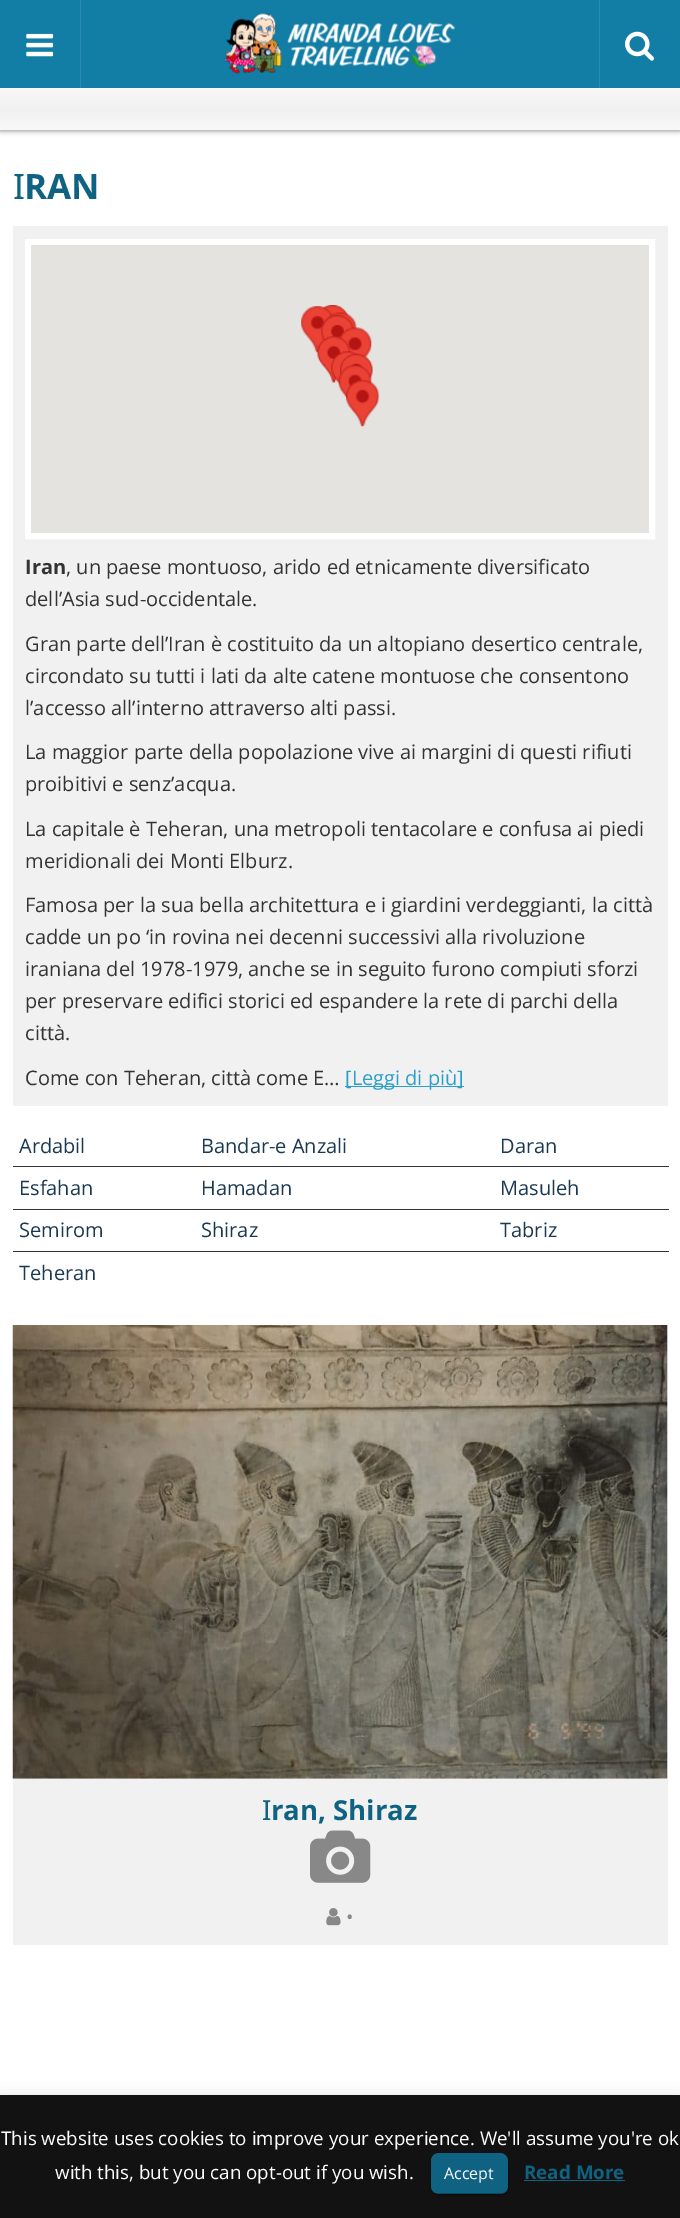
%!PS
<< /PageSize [680 2218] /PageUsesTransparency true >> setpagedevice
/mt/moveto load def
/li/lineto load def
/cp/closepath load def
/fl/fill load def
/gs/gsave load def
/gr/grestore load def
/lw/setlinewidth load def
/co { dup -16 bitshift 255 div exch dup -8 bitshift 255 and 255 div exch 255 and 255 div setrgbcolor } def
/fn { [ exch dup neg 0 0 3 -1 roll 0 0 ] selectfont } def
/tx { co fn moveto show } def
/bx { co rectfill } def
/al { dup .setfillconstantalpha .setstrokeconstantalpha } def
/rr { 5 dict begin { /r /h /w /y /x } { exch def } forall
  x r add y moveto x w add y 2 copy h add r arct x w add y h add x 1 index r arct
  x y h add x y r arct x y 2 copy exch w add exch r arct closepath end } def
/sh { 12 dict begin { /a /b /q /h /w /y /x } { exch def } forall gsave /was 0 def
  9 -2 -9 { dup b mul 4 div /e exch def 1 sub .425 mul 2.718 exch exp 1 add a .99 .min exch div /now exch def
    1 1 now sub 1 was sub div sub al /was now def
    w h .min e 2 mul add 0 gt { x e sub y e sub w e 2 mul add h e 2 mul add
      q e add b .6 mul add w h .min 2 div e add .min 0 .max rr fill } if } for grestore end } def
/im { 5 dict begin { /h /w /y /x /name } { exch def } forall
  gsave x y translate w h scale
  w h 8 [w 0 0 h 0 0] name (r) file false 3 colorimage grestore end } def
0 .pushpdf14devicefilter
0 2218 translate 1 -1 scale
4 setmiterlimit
0 0 680 2218 16#FFFFFF bx
16#000000 co
0 89 680 42 0 2.5 .4 sh
0 0 680 88 16#127EA5 bx
80 0 1 88 16#2A8BAE bx
(media/1.raw) 26 33 28 24 im
(media/2.raw) 224 12 232 62 im
599 0 1 88 16#2A8BAE bx
(media/3.raw) 625 31 29 30 im
gs 0 88 mt 680 88 li 680 130 li 0 130 li cp clip newpath
<< /ShadingType 2 /ColorSpace /DeviceRGB /Coords [340 87 340 130] /Extend [true true] /Function << /FunctionType 3 /Domain [0 1] /Functions [<< /FunctionType 2 /Domain [0 1] /C0 [.973 .973 .973] /C1 [.945 .945 .945] /N 1 >> << /FunctionType 2 /Domain [0 1] /C0 [.945 .945 .945] /C1 [.973 .973 .973] /N 1 >>] /Bounds [.5] /Encode [0 1 0 1] >> >> shfill gr
13 226 655 880 16#F1F1F1 bx
16#FFFFFF co
6 lw
28 242 624 294 rectstroke
31 245 618 288 16#E5E3DF bx
(media/5.raw) 321 305 28 36 im
(media/4.raw) 301 306 33 47 im
(media/6.raw) 323 312 34 18 im
(media/7.raw) 321 315 33 27 im
(media/8.raw) 339 327 33 31 im
(media/9.raw) 317 336 33 47 im
(media/10.raw) 331 351 29 47 im
(media/11.raw) 340 353 33 28 im
(media/12.raw) 338 365 34 47 im
(media/13.raw) 346 380 34 47 im
345 1086 119 1 16#299FCA bx
13 1166 656 1 16#333333 bx
13 1209 656 1 16#333333 bx
13 1251 656 1 16#333333 bx
13 1325 655 620 16#F1F1F1 bx
(media/14.raw) 12 1325 656 454 im
(media/15.raw) 310 1830 61 53 im
(media/16.raw) 326 1908 15 18 im
16#ACABAB co
0 2094 680 124 0 6 .3 sh
0 2095 680 123 16#121212 bx
16#000000 co
431 2154 77 41 8 2 .6 sh
16#0F6281 co
431 2153 77 41 8 rr fl
0.25 al
435 2193 69 1 16#000000 bx
1 al
524 2180 101 1 16#0F6281 bx
(I) 13 199 /NotoSans-Regular 35 16#0F6281 tx
(RAN) 24 199 /OpenSans-Bold 35 16#0F6281 tx
(Iran) 25 574 /OpenSans-Bold 20 16#333333 tx
(, un paese montuoso, arido ed etnicamente diversificato) 66 574 /OpenSans-Regular 20 16#333333 tx
(dell’Asia sud-occidentale.) 25 606 /OpenSans-Regular 20 16#333333 tx
(Gran parte dell’Iran è costituito da un altopiano desertico centrale,) 25 651 /OpenSans-Regular 20 16#333333 tx
(circondato su tutti i lati da alte catene montuose che consentono) 25 683 /OpenSans-Regular 20 16#333333 tx
(l’accesso all’interno attraverso alti passi.) 25 715 /OpenSans-Regular 20 16#333333 tx
(La maggior parte della popolazione vive ai margini di questi rifiuti) 25 759 /OpenSans-Regular 20 16#333333 tx
(proibitivi e senz’acqua.) 25 791 /OpenSans-Regular 20 16#333333 tx
(La capitale è Teheran, una metropoli tentacolare e confusa ai piedi) 25 836 /OpenSans-Regular 20 16#333333 tx
(meridionali dei Monti Elburz.) 25 868 /OpenSans-Regular 20 16#333333 tx
(Famosa per la sua bella architettura e i giardini verdeggianti, la città) 25 912 /OpenSans-Regular 20 16#333333 tx
(cadde un po ‘in rovina nei decenni successivi alla rivoluzione) 25 944 /OpenSans-Regular 20 16#333333 tx
(iraniana del 1978-1979, anche se in seguito furono compiuti sforzi) 25 976 /OpenSans-Regular 20 16#333333 tx
(per preservare edifici storici ed espandere la rete di parchi della) 25 1008 /OpenSans-Regular 20 16#333333 tx
(città.) 25 1040 /OpenSans-Regular 20 16#333333 tx
(Come con Teheran, città come E…) 25 1085 /OpenSans-Regular 20 16#333333 tx
([Leggi di più]) 345 1085 /OpenSans-Regular 20 16#299FCA tx
(Ardabil) 19 1153 /OpenSans-Regular 20 16#1B3852 tx
(Bandar-e Anzali) 201 1153 /OpenSans-Regular 20 16#1B3852 tx
(Daran) 500 1153 /OpenSans-Regular 20 16#1B3852 tx
(Esfahan) 19 1195 /OpenSans-Regular 20 16#1B3852 tx
(Hamadan) 201 1195 /OpenSans-Regular 20 16#1B3852 tx
(Masuleh) 500 1195 /OpenSans-Regular 20 16#1B3852 tx
(Semirom) 19 1237 /OpenSans-Regular 20 16#1B3852 tx
(Shiraz) 201 1237 /OpenSans-Regular 20 16#1B3852 tx
(Tabriz) 500 1237 /OpenSans-Regular 20 16#1B3852 tx
(Teheran) 19 1280 /OpenSans-Regular 20 16#1B3852 tx
(I) 262 1820 /NotoSans-Regular 27.5 16#0F6281 tx
(ran, Shiraz) 271 1820 /OpenSans-Bold 27.5 16#0F6281 tx
(•) 346 1924 /OpenSans-Regular 20 16#888888 tx
(This website uses cookies to improve your experience. We'll assume you're ok) 1 2145 /OpenSans-Regular 18.75 16#FFFFFF tx
(with this, but you can opt-out if you wish.) 55 2179 /OpenSans-Regular 18.75 16#FFFFFF tx
(Accept) 444 2179 /OpenSans-Regular 16 16#FFFFFF tx
(Read More) 524 2179 /OpenSans-Bold 18.75 16#0F6281 tx
.poppdf14devicefilter showpage
